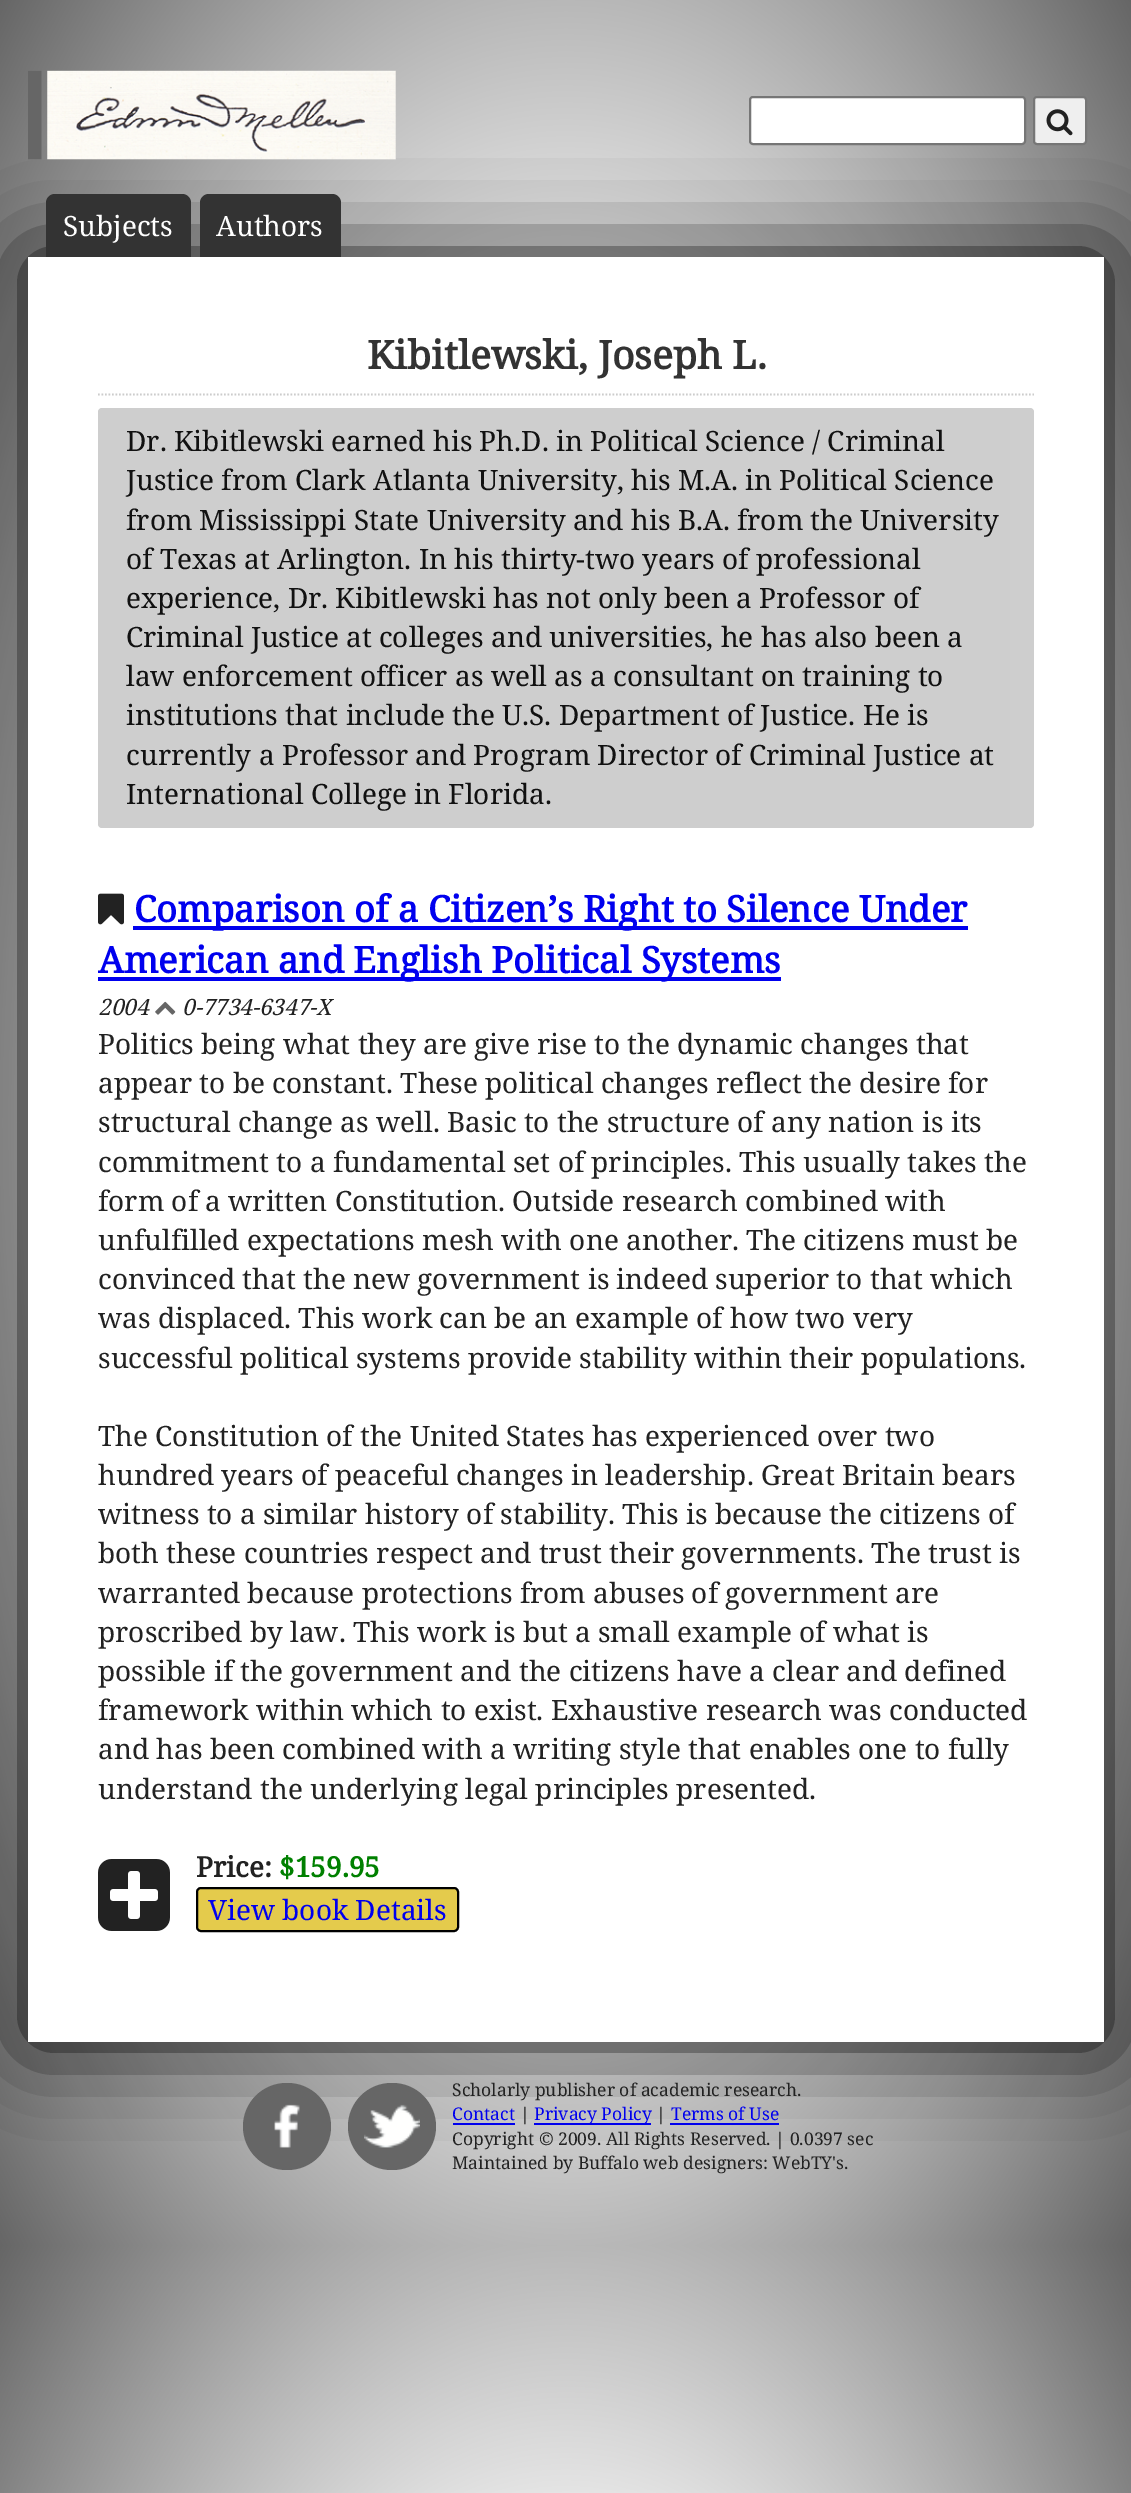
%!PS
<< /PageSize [1131 2493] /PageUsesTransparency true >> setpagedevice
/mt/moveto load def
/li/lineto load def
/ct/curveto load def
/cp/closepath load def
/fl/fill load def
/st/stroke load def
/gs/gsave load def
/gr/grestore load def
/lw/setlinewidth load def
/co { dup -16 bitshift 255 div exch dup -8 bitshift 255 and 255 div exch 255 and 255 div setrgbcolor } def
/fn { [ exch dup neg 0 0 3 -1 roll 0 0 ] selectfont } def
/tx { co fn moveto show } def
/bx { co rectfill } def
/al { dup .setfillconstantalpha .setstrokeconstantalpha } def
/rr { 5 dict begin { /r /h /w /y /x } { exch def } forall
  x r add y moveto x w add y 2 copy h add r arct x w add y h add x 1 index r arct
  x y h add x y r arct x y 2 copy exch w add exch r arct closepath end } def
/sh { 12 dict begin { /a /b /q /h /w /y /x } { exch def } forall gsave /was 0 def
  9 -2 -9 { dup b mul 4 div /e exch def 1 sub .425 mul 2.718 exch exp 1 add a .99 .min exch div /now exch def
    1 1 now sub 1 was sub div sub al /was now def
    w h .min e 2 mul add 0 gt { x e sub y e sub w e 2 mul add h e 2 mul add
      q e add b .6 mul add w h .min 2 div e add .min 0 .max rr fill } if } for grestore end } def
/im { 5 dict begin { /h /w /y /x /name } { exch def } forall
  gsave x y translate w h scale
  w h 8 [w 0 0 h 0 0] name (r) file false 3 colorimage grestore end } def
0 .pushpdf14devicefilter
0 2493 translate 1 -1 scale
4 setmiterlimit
0 0 1131 2493 16#FFFFFF bx
gs 0 0 mt 1131 0 li 1131 2245 li 0 2245 li cp clip newpath 566 1123 translate 801 1588 scale
<< /ShadingType 3 /ColorSpace /DeviceRGB /Coords [0 0 0 0 0 1] /Extend [true true] /Function << /FunctionType 3 /Domain [0 1] /Functions [<< /FunctionType 2 /Domain [0 1] /C0 [.894 .961 .988] /C1 [.929 .929 .929] /N 1 >> << /FunctionType 2 /Domain [0 1] /C0 [.929 .929 .929] /C1 [.4 .4 .4] /N 1 >>] /Bounds [.52] /Encode [0 1 0 1] >> >> shfill gr
gs 0 2245 mt 1131 2245 li 1131 2493 li 0 2493 li cp clip newpath 566 3368 translate 801 1588 scale
<< /ShadingType 3 /ColorSpace /DeviceRGB /Coords [0 0 0 0 0 1] /Extend [true true] /Function << /FunctionType 3 /Domain [0 1] /Functions [<< /FunctionType 2 /Domain [0 1] /C0 [.894 .961 .988] /C1 [.929 .929 .929] /N 1 >> << /FunctionType 2 /Domain [0 1] /C0 [.929 .929 .929] /C1 [.4 .4 .4] /N 1 >>] /Bounds [.52] /Encode [0 1 0 1] >> >> shfill gr
16#000000 co
28 257 1076 1785 0 44 1 sh
(media/1.raw) 28 70 368 90 im
16#FFFFFF co
750 97 275 47 3 rr gs fl gr
16#767676 co
2 lw
st
16#EFEFEF co
1034 97 52 47 3 rr gs fl gr
16#767676 co
st
(media/2.raw) 1046 109 27 27 im
16#333333 co
55 194 mt 182 194 li 187 194 191 198 191 203 ct 191 257 li 46 257 li 46 203 li 46 198 50 194 55 194 ct cp fl
209 194 mt 332 194 li 337 194 341 198 341 203 ct 341 257 li 200 257 li 200 203 li 200 198 204 194 209 194 ct cp fl
28 257 1076 1785 16#FFFFFF bx
16#CCCCCC co
1.8 lw
[1.75 1.75] 0 setdash
98 394.5 mt 1034 394.5 li st
16#CECECE co
98 408 936 420 4 rr fl
(media/3.raw) 98 893 26 32 im
133 926 835 4 16#0000EE bx
98 977 683 4 16#0000EE bx
(media/4.raw) 155 1001 21 14 im
(media/5.raw) 98 1859 72 72 im
16#E4CB4C co
197 1888 261 43 4 rr gs fl gr
16#000000 co
2 lw
[] 0 setdash
st
16#666666 co
243 2083 88 87 43.5 rr fl
(media/6.raw) 274 2104 26 44 im
348 2083 88 87 43.5 rr fl
(media/7.raw) 364 2104 56 44 im
453 2123 62 2 16#0000EE bx
534 2123 117 2 16#0000EE bx
670 2123 109 2 16#0000EE bx
(Subjects) 63 236 /NotoSerif-Regular 28 16#FFFFFF tx
(Authors) 216 236 /NotoSerif-Regular 28 16#FFFFFF tx
(Kibitlewski, Joseph L.) 367 369 /NotoSerif-Bold 39.25 16#333333 tx
(Dr. Kibitlewski earned his Ph.D. in Political Science / Criminal) 126 451 /NotoSerif-Regular 28 16#111111 tx
(Justice from Clark Atlanta University, his M.A. in Political Science) 126 490 /NotoSerif-Regular 28 16#111111 tx
(from Mississippi State University and his B.A. from the University) 126 530 /NotoSerif-Regular 28 16#111111 tx
(of Texas at Arlington. In his thirty-two years of professional) 126 569 /NotoSerif-Regular 28 16#111111 tx
(experience, Dr. Kibitlewski has not only been a Professor of) 126 608 /NotoSerif-Regular 28 16#111111 tx
(Criminal Justice at colleges and universities, he has also been a) 126 647 /NotoSerif-Regular 28 16#111111 tx
(law enforcement officer as well as a consultant on training to) 126 686 /NotoSerif-Regular 28 16#111111 tx
(institutions that include the U.S. Department of Justice. He is) 126 725 /NotoSerif-Regular 28 16#111111 tx
(currently a Professor and Program Director of Criminal Justice at) 126 765 /NotoSerif-Regular 28 16#111111 tx
(International College in Florida.) 126 804 /NotoSerif-Regular 28 16#111111 tx
(Comparison of a Citizen’s Right to Silence Under) 134 922 /NotoSerif-Bold 36.4 16#0000EE tx
(American and English Political Systems) 98 973 /NotoSerif-Bold 36.4 16#0000EE tx
(2004) 98 1015 /NotoSerif-Italic 22.5 16#222222 tx
(0-7734-6347-X) 182 1015 /NotoSerif-Italic 22.5 16#222222 tx
(Politics being what they are give rise to the dynamic changes that) 98 1054 /NotoSerif-Regular 28 16#222222 tx
(appear to be constant. These political changes reflect the desire for) 98 1093 /NotoSerif-Regular 28 16#222222 tx
(structural change as well. Basic to the structure of any nation is its) 98 1132 /NotoSerif-Regular 28 16#222222 tx
(commitment to a fundamental set of principles. This usually takes the) 98 1172 /NotoSerif-Regular 28 16#222222 tx
(form of a written Constitution. Outside research combined with) 98 1211 /NotoSerif-Regular 28 16#222222 tx
(unfulfilled expectations mesh with one another. The citizens must be) 98 1250 /NotoSerif-Regular 28 16#222222 tx
(convinced that the new government is indeed superior to that which) 98 1289 /NotoSerif-Regular 28 16#222222 tx
(was displaced. This work can be an example of how two very) 98 1328 /NotoSerif-Regular 28 16#222222 tx
(successful political systems provide stability within their populations.) 98 1368 /NotoSerif-Regular 28 16#222222 tx
(The Constitution of the United States has experienced over two) 98 1446 /NotoSerif-Regular 28 16#222222 tx
(hundred years of peaceful changes in leadership. Great Britain bears) 98 1485 /NotoSerif-Regular 28 16#222222 tx
(witness to a similar history of stability. This is because the citizens of) 98 1524 /NotoSerif-Regular 28 16#222222 tx
(both these countries respect and trust their governments. The trust is) 98 1563 /NotoSerif-Regular 28 16#222222 tx
(warranted because protections from abuses of government are) 98 1603 /NotoSerif-Regular 28 16#222222 tx
(proscribed by law. This work is but a small example of what is) 98 1642 /NotoSerif-Regular 28 16#222222 tx
(possible if the government and the citizens have a clear and defined) 98 1681 /NotoSerif-Regular 28 16#222222 tx
(framework within which to exist. Exhaustive research was conducted) 98 1720 /NotoSerif-Regular 28 16#222222 tx
(and has been combined with a writing style that enables one to fully) 98 1759 /NotoSerif-Regular 28 16#222222 tx
(understand the underlying legal principles presented.) 98 1799 /NotoSerif-Regular 28 16#222222 tx
(Price:) 196 1877 /NotoSerif-Bold 28 16#222222 tx
($159.95) 279 1877 /NotoSerif-Bold 28 16#008000 tx
(View book Details) 208 1920 /NotoSerif-Regular 28 16#0000EE tx
(Scholarly publisher of academic research.) 452 2096 /NotoSerif-Regular 17.5 16#222222 tx
(Contact) 452 2120 /NotoSerif-Regular 17.5 16#0000EE tx
(|) 520 2120 /NotoSerif-Regular 17.5 16#222222 tx
(Privacy Policy) 534 2120 /NotoSerif-Regular 17.5 16#0000EE tx
(|) 656 2120 /NotoSerif-Regular 17.5 16#222222 tx
(Terms of Use) 671 2120 /NotoSerif-Regular 17.5 16#0000EE tx
(Copyright © 2009. All Rights Reserved. | 0.0397 sec) 452 2145 /NotoSerif-Regular 17.5 16#222222 tx
(Maintained by Buffalo web designers: WebTY's.) 452 2169 /NotoSerif-Regular 17.5 16#222222 tx
.poppdf14devicefilter showpage
